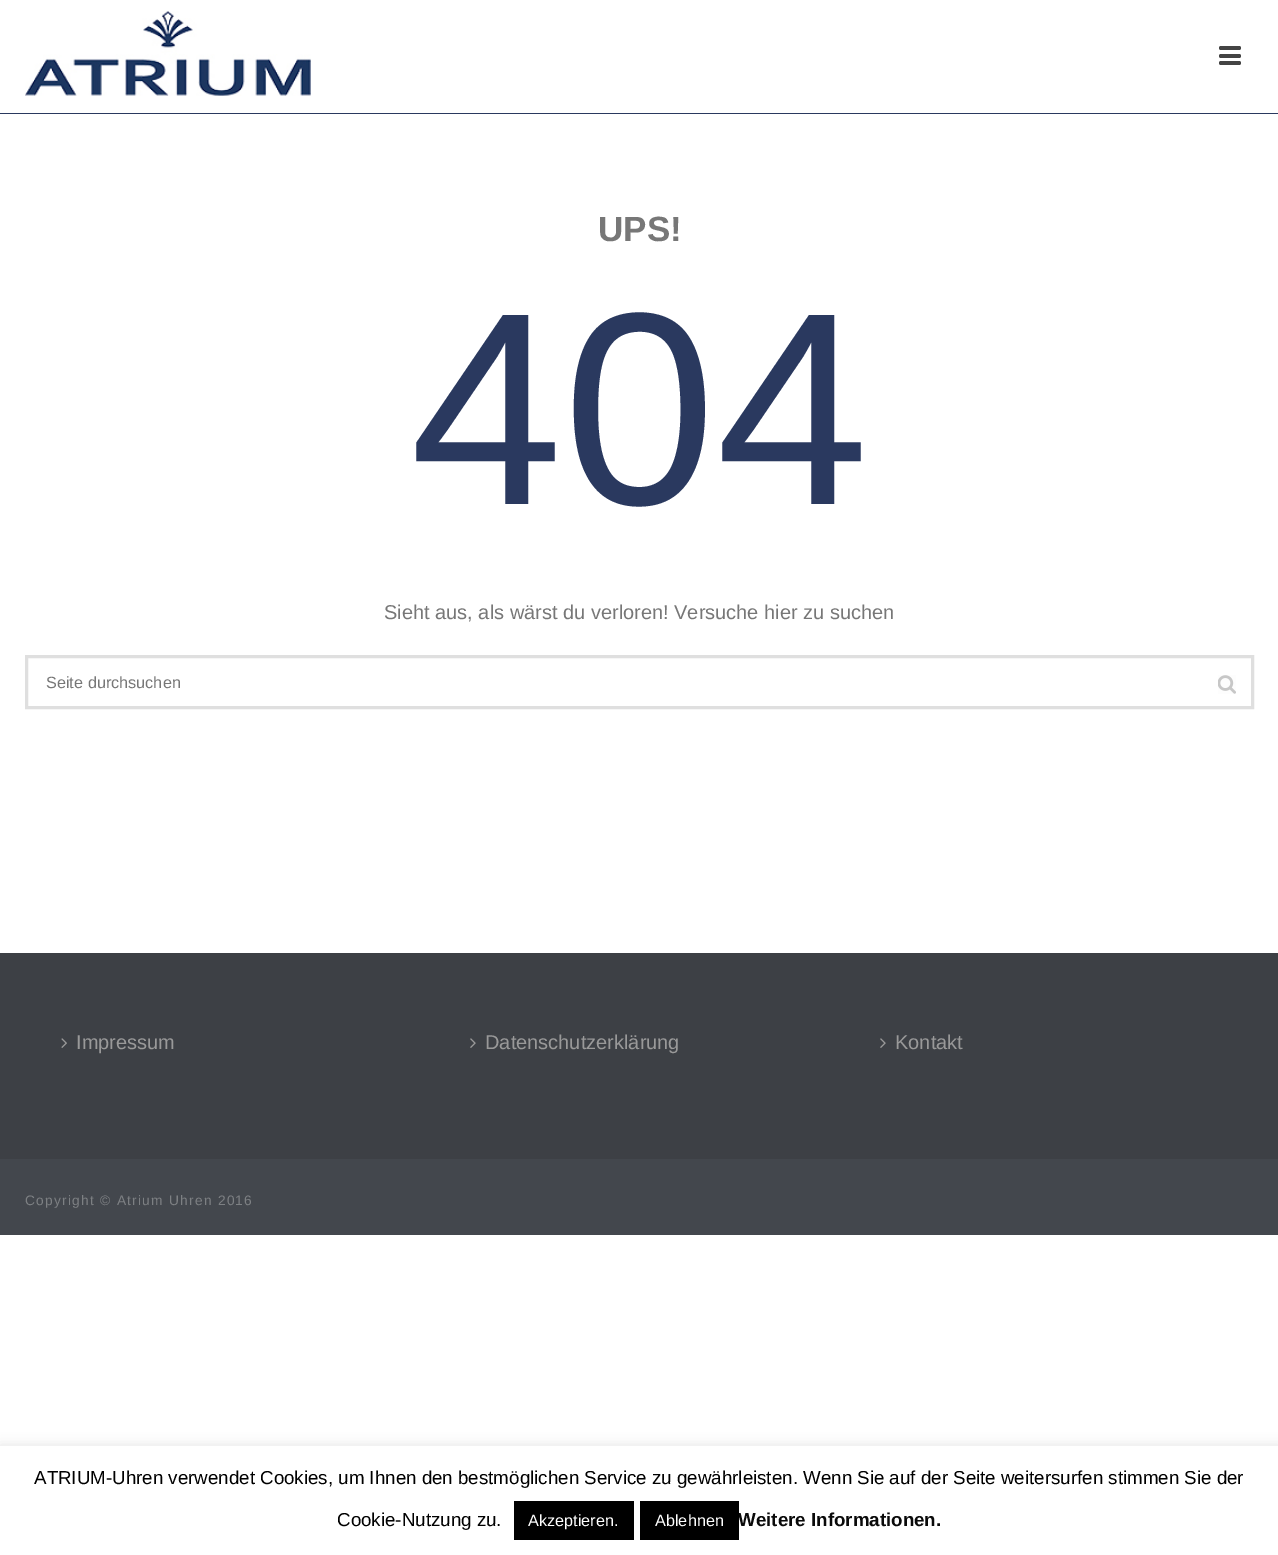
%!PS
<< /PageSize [1278 1555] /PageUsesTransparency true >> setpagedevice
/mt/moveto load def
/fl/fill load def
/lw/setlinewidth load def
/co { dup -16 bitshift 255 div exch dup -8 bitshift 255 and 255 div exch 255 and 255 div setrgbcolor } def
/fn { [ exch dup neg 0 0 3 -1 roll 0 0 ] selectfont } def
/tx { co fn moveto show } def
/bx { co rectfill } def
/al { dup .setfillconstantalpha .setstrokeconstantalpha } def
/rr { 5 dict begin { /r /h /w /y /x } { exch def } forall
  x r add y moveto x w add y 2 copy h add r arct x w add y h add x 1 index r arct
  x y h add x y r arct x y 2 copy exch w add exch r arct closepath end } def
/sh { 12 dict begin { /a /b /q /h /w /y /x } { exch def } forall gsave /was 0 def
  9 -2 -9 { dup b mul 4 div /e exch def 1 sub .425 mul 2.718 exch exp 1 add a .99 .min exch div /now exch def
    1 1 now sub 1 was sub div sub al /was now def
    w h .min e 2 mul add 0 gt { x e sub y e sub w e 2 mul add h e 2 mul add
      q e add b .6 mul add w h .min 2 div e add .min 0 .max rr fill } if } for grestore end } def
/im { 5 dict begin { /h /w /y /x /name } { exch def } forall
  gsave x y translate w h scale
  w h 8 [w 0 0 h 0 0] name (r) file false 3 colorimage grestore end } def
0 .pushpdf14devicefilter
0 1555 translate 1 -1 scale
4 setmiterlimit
0 0 1278 1555 16#FFFFFF bx
0 113 1278 1 16#2A395F bx
(media/1.raw) 25 11 286 85 im
16#444444 co
1219 46 22 4 2 rr fl
1219 54 22 4 2 rr fl
1219 61 22 4 2 rr fl
16#DFDFDF co
3 lw
26.5 656.5 1226 51 rectstroke
(media/2.raw) 1218 675 18 19 im
0 953 1278 206 16#3D4045 bx
(media/3.raw) 61 1038 6 10 im
(media/4.raw) 470 1038 6 10 im
(media/4.raw) 880 1038 6 10 im
0 1159 1278 76 16#43474D bx
16#ACABAB co
0 1445 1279 109 0 6 .3 sh
0 1446 1278 109 16#FFFFFF bx
514 1501 120 39 16#000000 bx
(UPS!) 598 241 /LiberationSans-Bold 35 16#777777 tx
(404) 410 504 /LiberationSans-Regular 275 16#2A395F tx
(Sieht aus, als wärst du verloren! Versuche hier zu suchen) 384 619 /LiberationSans-Regular 20 16#777777 tx
(Seite durchsuchen) 46 688 /LiberationSans-Regular 16.25 16#777777 tx
(Impressum) 76 1049 /LiberationSans-Regular 20 16#999999 tx
(Datenschutzerklärung) 485 1049 /LiberationSans-Regular 20 16#999999 tx
(Kontakt) 895 1049 /LiberationSans-Regular 20 16#999999 tx
/LiberationSans-Regular 13.75 fn
16#7D8083 co
25 1205 mt 1.25 0 (Copyright © Atrium Uhren 2016) ashow
(ATRIUM-Uhren verwendet Cookies, um Ihnen den bestmöglichen Service zu gewährleisten. Wenn Sie auf der Seite weitersurfen stimmen Sie der) 34 1484 /LiberationSans-Regular 18.75 16#000000 tx
(Cookie-Nutzung zu.) 337 1526 /LiberationSans-Regular 18.75 16#000000 tx
(Akzeptieren.) 528 1526 /LiberationSans-Regular 16.25 16#FFFFFF tx
(Weitere Informationen.) 738 1526 /LiberationSans-Bold 18.75 16#0A0A0A tx
640 1501 99 39 16#000000 bx
(Ablehnen) 655 1526 /LiberationSans-Regular 16.25 16#FFFFFF tx
.poppdf14devicefilter showpage
